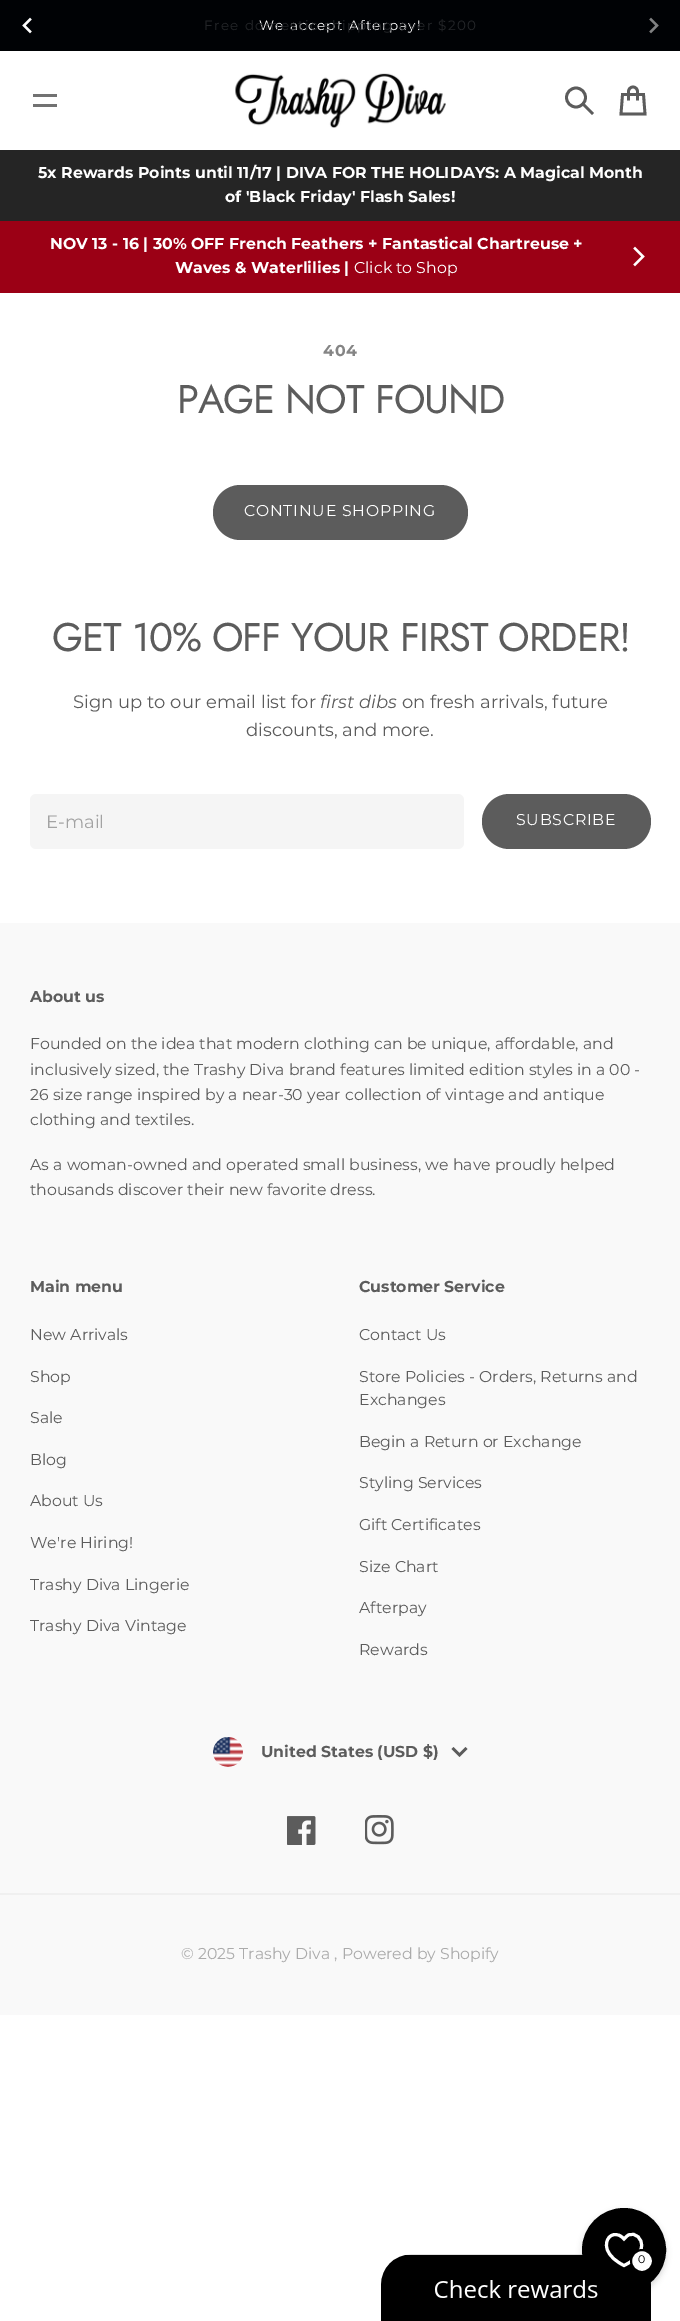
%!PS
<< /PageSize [680 2321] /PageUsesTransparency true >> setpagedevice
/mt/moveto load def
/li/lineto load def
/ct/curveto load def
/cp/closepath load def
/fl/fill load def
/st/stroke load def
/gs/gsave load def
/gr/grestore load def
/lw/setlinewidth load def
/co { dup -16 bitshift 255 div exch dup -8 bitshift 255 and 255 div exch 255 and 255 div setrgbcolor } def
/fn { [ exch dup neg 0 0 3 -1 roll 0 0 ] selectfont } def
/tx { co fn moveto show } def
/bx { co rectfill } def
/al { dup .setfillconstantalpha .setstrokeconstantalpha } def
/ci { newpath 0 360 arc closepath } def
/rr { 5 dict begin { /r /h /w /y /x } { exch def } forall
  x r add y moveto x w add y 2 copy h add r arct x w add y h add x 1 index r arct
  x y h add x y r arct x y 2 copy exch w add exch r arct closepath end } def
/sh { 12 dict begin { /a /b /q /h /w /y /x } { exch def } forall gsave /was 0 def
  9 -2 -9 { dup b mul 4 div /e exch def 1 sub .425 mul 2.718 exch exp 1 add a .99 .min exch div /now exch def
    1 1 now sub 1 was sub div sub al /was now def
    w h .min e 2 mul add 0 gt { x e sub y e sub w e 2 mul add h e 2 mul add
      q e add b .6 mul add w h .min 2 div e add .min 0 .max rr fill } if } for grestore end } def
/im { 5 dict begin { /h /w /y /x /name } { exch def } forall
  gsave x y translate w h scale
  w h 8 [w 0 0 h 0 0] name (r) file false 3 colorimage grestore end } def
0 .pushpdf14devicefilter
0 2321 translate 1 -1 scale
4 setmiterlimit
0 0 680 2321 16#FFFFFF bx
0 0 680 51 16#000205 bx
16#FFFFFF co
2.2 lw
2 setlinecap
30 31.5 mt 24 25.5 li 30 19.5 li st
16#808182 co
651 31.5 mt 657 25.5 li 651 19.5 li st
33 104 24 3 16#727272 bx
33 94 24 3 16#727272 bx
(media/1.raw) 235 73 211 55 im
16#5C5C5C co
2.8 lw
592 113 mt 583 104 li st
0 setlinecap
576 97.5 9.5 ci st
2 setlinecap
628.5 99 mt 628.5 91.5 li 628.5 89 630.5 87 633 87 ct 635.5 87 637.5 89 637.5 91.5 ct 637.5 99 li 621 114 mt 645 114 li 643.5 94.5 li 622.5 94.5 li cp st
0 150 680 71 16#252525 bx
0 221 680 72 16#9B0015 bx
16#FFFFFF co
2.2 lw
635 264.5 mt 643 256.5 li 635 248.5 li st
16#5C5C5C co
213 485 255 55 27.5 rr fl
16#F5F5F5 co
30 794 434 55 6 rr fl
16#5C5C5C co
482 794 169 55 27.5 rr fl
0 923 680 1092 16#F9F9F9 bx
(media/2.raw) 213 1737 30 30 im
16#5C5C5C co
2.8 lw
453.5 1749 mt 459.5 1755 li 465.5 1749 li st
(media/3.raw) 287 1816 29 29 im
(media/4.raw) 365 1815 29 30 im
0 1893 680 2 16#F0F0F0 bx
(media/5.raw) 381 2254 270 67 im
16#000000 co
582 2211 84 84 42 3 .15 sh
624 2250 40.5 ci gs fl gr
3 lw
0 setlinecap
st
16#FFFFFF co
624 2265.5 mt 617 2262 609 2256.5 607 2248.5 ct 604.5 2240.5 610.5 2231.5 619.5 2235.5 ct 621 2236 622.5 2237.5 624 2239 ct 625.5 2237.5 626.5 2236 628.5 2235 ct 636 2232 642.5 2239 641.5 2246.5 ct 640.5 2255.5 631.5 2262 624 2265.5 ct cp st
642 2261 11 ci gs fl gr
16#000000 co
2 lw
st
/Montserrat-Regular 13.5 fn
16#FFFFFF co
259 30 mt 1.35 0 (We accept Afterpay!) ashow
16#242629 co
204 30 mt 1.35 0 (Free domestic shipping over $200) ashow
(5x Rewards Points until 11/17 | DIVA FOR THE HOLIDAYS: A Magical Month) 38 178 /Montserrat-Bold 15.75 16#FFFFFF tx
(of 'Black Friday' Flash Sales!) 225 202 /Montserrat-Bold 15.75 16#FFFFFF tx
(NOV 13 - 16 | 30% OFF French Feathers + Fantastical Chartreuse +) 50 249 /Montserrat-Bold 15.75 16#FFFFFF tx
(Waves & Waterlilies |) 175 273 /Montserrat-Bold 15.75 16#FFFFFF tx
(Click to Shop) 354 273 /Montserrat-Regular 15.75 16#FFFFFF tx
/Montserrat-Bold 15.75 fn
16#858585 co
323 356 mt .75 0 (404) ashow
/Jost-Regular 40 fn
16#5C5C5C co
177 413 mt -1 0 (PAGE NOT FOUND) ashow
/Montserrat-Regular 15.75 fn
16#FFFFFF co
244 516 mt .75 0 (CONTINUE SHOPPING) ashow
/Jost-Regular 40 fn
16#5C5C5C co
52 651 mt -1 0 (GET 10% OFF YOUR FIRST ORDER!) ashow
(Sign up to our email list for) 73 708 /Montserrat-Regular 18 16#5C5C5C tx
(first dibs) 320 708 /Montserrat-Italic 18 16#5C5C5C tx
(on fresh arrivals, future) 402 708 /Montserrat-Regular 18 16#5C5C5C tx
(discounts, and more.) 246 736 /Montserrat-Regular 18 16#5C5C5C tx
(E-mail) 46 828 /Montserrat-Regular 18 16#A3A3A3 tx
/Montserrat-Regular 15.75 fn
16#FFFFFF co
516 825 mt .75 0 (SUBSCRIBE) ashow
(About us) 30 1002 /Montserrat-Bold 15.75 16#5C5C5C tx
(Founded on the idea that modern clothing can be unique, affordable, and) 30 1049 /Montserrat-Regular 15.75 16#5C5C5C tx
(inclusively sized, the Trashy Diva brand features limited edition styles in a 00 -) 30 1075 /Montserrat-Regular 15.75 16#5C5C5C tx
(26 size range inspired by a near-30 year collection of vintage and antique) 30 1100 /Montserrat-Regular 15.75 16#5C5C5C tx
(clothing and textiles.) 30 1125 /Montserrat-Regular 15.75 16#5C5C5C tx
(As a woman-owned and operated small business, we have proudly helped) 30 1170 /Montserrat-Regular 15.75 16#5C5C5C tx
(thousands discover their new favorite dress.) 30 1195 /Montserrat-Regular 15.75 16#5C5C5C tx
(Main menu) 30 1292 /Montserrat-Bold 15.75 16#5C5C5C tx
(New Arrivals) 30 1340 /Montserrat-Regular 15.75 16#5C5C5C tx
(Shop) 30 1382 /Montserrat-Regular 15.75 16#5C5C5C tx
(Sale) 30 1423 /Montserrat-Regular 15.75 16#5C5C5C tx
(Blog) 30 1465 /Montserrat-Regular 15.75 16#5C5C5C tx
(About Us) 30 1506 /Montserrat-Regular 15.75 16#5C5C5C tx
(We're Hiring!) 30 1548 /Montserrat-Regular 15.75 16#5C5C5C tx
(Trashy Diva Lingerie) 30 1590 /Montserrat-Regular 15.75 16#5C5C5C tx
(Trashy Diva Vintage) 30 1631 /Montserrat-Regular 15.75 16#5C5C5C tx
(Customer Service) 359 1292 /Montserrat-Bold 15.75 16#5C5C5C tx
(Contact Us) 359 1340 /Montserrat-Regular 15.75 16#5C5C5C tx
(Store Policies - Orders, Returns and) 359 1382 /Montserrat-Regular 15.75 16#5C5C5C tx
(Exchanges) 359 1405 /Montserrat-Regular 15.75 16#5C5C5C tx
(Begin a Return or Exchange) 359 1447 /Montserrat-Regular 15.75 16#5C5C5C tx
(Styling Services) 359 1488 /Montserrat-Regular 15.75 16#5C5C5C tx
(Gift Certificates) 359 1530 /Montserrat-Regular 15.75 16#5C5C5C tx
(Size Chart) 359 1572 /Montserrat-Regular 15.75 16#5C5C5C tx
(Afterpay) 359 1613 /Montserrat-Regular 15.75 16#5C5C5C tx
(Rewards) 359 1655 /Montserrat-Regular 15.75 16#5C5C5C tx
(United States \(USD $\)) 261 1757 /Montserrat-Bold 15.75 16#5C5C5C tx
(© 2025 Trashy Diva , Powered by Shopify) 181 1959 /Montserrat-Regular 15.75 16#ABABAB tx
(0) 638 2263 /Montserrat-Regular 11 16#000000 tx
.poppdf14devicefilter showpage
